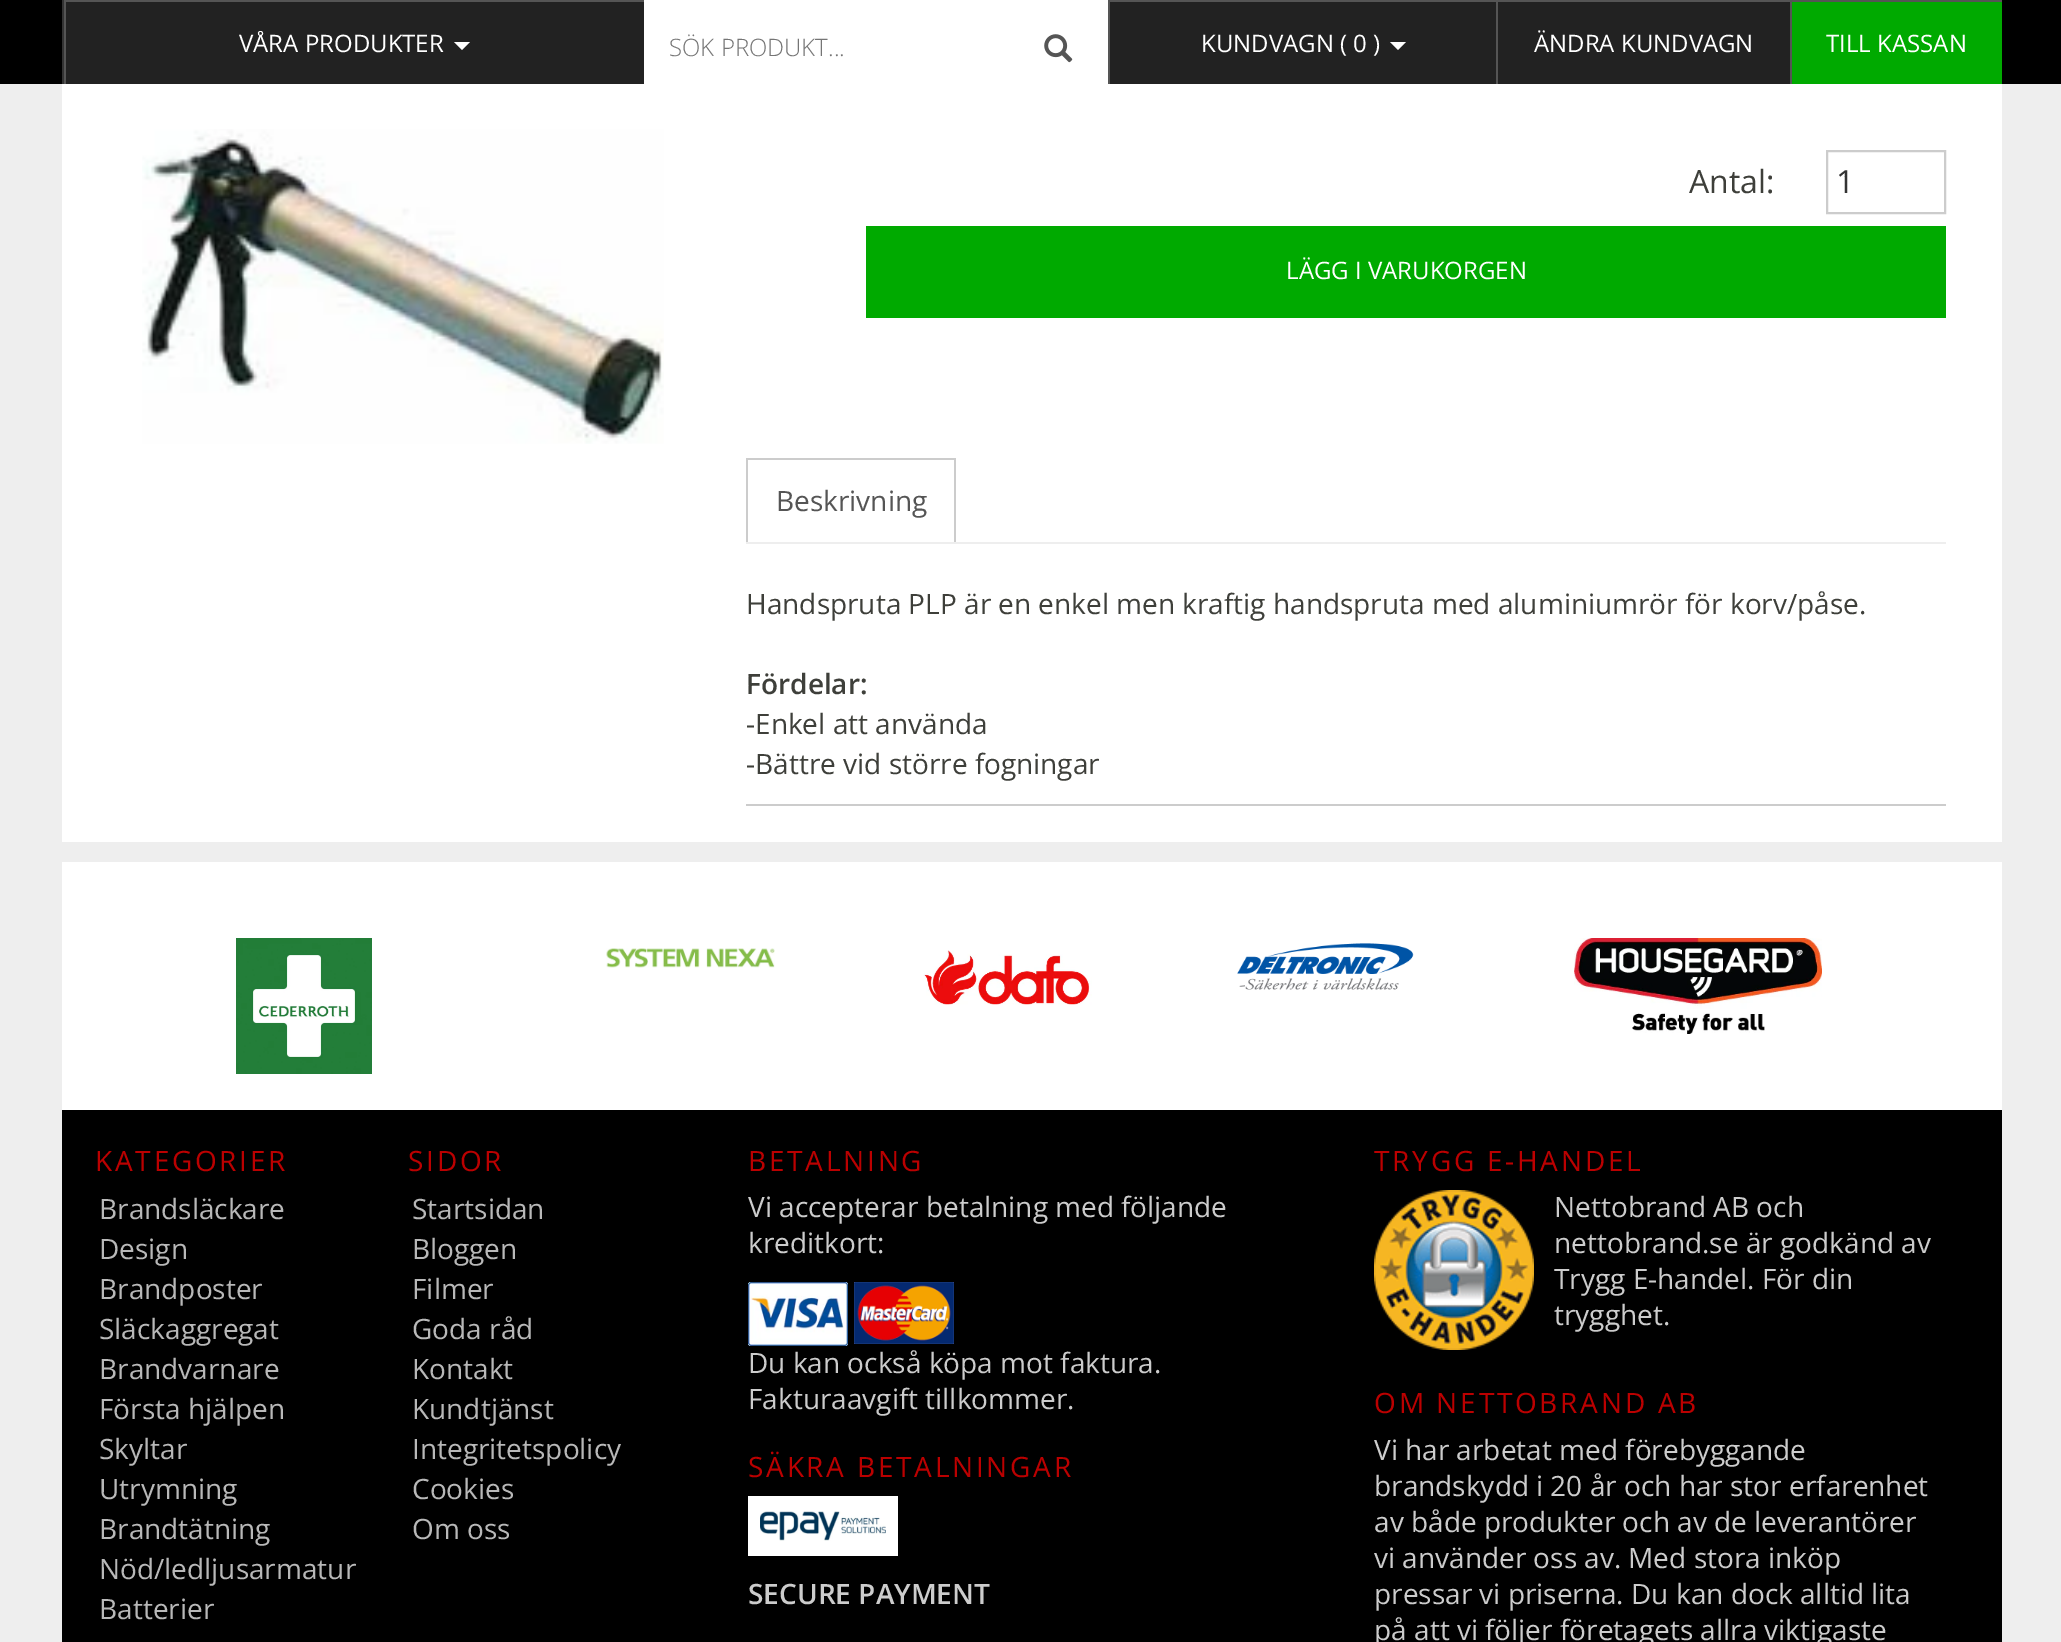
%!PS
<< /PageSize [2061 1642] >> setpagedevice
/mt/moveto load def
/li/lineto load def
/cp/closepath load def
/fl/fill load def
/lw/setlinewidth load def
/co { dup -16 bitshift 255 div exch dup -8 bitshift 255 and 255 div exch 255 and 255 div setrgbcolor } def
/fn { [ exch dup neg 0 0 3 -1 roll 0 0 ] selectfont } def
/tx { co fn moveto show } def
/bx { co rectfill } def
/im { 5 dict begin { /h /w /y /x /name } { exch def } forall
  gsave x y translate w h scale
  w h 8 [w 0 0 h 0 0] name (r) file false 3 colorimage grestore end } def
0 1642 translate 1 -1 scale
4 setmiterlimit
0 0 2061 1642 16#EEEEEE bx
0 0 2061 84 16#000000 bx
66 2 578 82 16#222222 bx
62 0 2 84 16#333333 bx
64 0 580 2 16#555555 bx
64 0 2 84 16#555555 bx
16#FFFFFF co
454 42 mt 470 42 li 462 50 li cp fl
644 0 464 84 16#FFFFFF bx
(media/1.raw) 1044 34 29 29 im
1110 2 386 82 16#222222 bx
1108 0 894 2 16#555555 bx
1108 0 2 84 16#555555 bx
16#FFFFFF co
1390 42 mt 1406 42 li 1398 50 li cp fl
1498 2 292 82 16#222222 bx
1496 0 2 84 16#555555 bx
1792 2 210 82 16#00AA00 bx
1790 0 2 84 16#555555 bx
62 84 1940 758 16#FFFFFF bx
(media/2.raw) 142 129 522 315 im
16#CCCCCC co
2 lw
1827 151 118 62 rectstroke
866 226 1080 92 16#00AA00 bx
746 542 1200 2 16#EEEEEE bx
746 458 210 2 16#CCCCCC bx
954 458 2 84 16#CCCCCC bx
746 458 2 84 16#CCCCCC bx
746 804 1200 2 16#CCCCCC bx
62 862 1940 248 16#FFFFFF bx
(media/3.raw) 236 938 136 136 im
(media/4.raw) 606 948 169 20 im
(media/5.raw) 923 950 169 55 im
(media/6.raw) 1237 943 177 47 im
(media/7.raw) 1574 938 248 96 im
62 1110 1940 532 16#000000 bx
(media/8.raw) 748 1282 100 64 im
(media/9.raw) 854 1282 100 62 im
748 1496 150 60 16#FFFFFF bx
(media/10.raw) 760 1511 126 30 im
(media/11.raw) 1374 1190 160 160 im
(VÅRA PRODUKTER) 239 52 /OpenSans-Regular 24 16#FFFFFF tx
(SÖK PRODUKT...) 669 56 /OpenSans-Light 24 16#757575 tx
(KUNDVAGN \( 0 \)) 1201 52 /OpenSans-Regular 24 16#FFFFFF tx
(ÄNDRA KUNDVAGN) 1534 52 /OpenSans-Regular 24 16#FFFFFF tx
(TILL KASSAN) 1826 52 /OpenSans-Regular 24 16#FFFFFF tx
(Antal:) 1689 193 /OpenSans-Regular 32 16#3E3F3A tx
(1) 1836 193 /OpenSans-Regular 32 16#333333 tx
(LÄGG I VARUKORGEN) 1286 279 /OpenSans-Regular 24 16#FFFFFF tx
(Beskrivning) 776 511 /OpenSans-Regular 28 16#555555 tx
(Handspruta PLP är en enkel men kraftig handspruta med aluminiumrör för korv/påse.) 746 614 /OpenSans-Regular 28 16#3E3F3A tx
(Fördelar:) 746 694 /OpenSans-SemiBold 28 16#3E3F3A tx
(-Enkel att använda) 746 734 /OpenSans-Regular 28 16#3E3F3A tx
(-Bättre vid större fogningar) 746 774 /OpenSans-Regular 28 16#3E3F3A tx
16#BB0000 co
95 1171 mt 2.75 0 (KATEGORIER) ashow
(Brandsläckare) 99 1219 /OpenSans-Regular 28 16#B8B8B8 tx
(Design) 99 1259 /OpenSans-Regular 28 16#B8B8B8 tx
(Brandposter) 99 1299 /OpenSans-Regular 28 16#B8B8B8 tx
(Släckaggregat) 99 1339 /OpenSans-Regular 28 16#B8B8B8 tx
(Brandvarnare) 99 1379 /OpenSans-Regular 28 16#B8B8B8 tx
(Första hjälpen) 99 1419 /OpenSans-Regular 28 16#B8B8B8 tx
(Skyltar) 99 1459 /OpenSans-Regular 28 16#B8B8B8 tx
(Utrymning) 99 1499 /OpenSans-Regular 28 16#B8B8B8 tx
(Brandtätning) 99 1539 /OpenSans-Regular 28 16#B8B8B8 tx
(Nöd/ledljusarmatur) 99 1579 /OpenSans-Regular 28 16#B8B8B8 tx
(Batterier) 99 1619 /OpenSans-Regular 28 16#B8B8B8 tx
16#BB0000 co
408 1171 mt 2.75 0 (SIDOR) ashow
(Startsidan) 412 1219 /OpenSans-Regular 28 16#B8B8B8 tx
(Bloggen) 412 1259 /OpenSans-Regular 28 16#B8B8B8 tx
(Filmer) 412 1299 /OpenSans-Regular 28 16#B8B8B8 tx
(Goda råd) 412 1339 /OpenSans-Regular 28 16#B8B8B8 tx
(Kontakt) 412 1379 /OpenSans-Regular 28 16#B8B8B8 tx
(Kundtjänst) 412 1419 /OpenSans-Regular 28 16#B8B8B8 tx
(Integritetspolicy) 412 1459 /OpenSans-Regular 28 16#B8B8B8 tx
(Cookies) 412 1499 /OpenSans-Regular 28 16#B8B8B8 tx
(Om oss) 412 1539 /OpenSans-Regular 28 16#B8B8B8 tx
16#BB0000 co
748 1171 mt 2.75 0 (BETALNING) ashow
(Vi accepterar betalning med följande) 748 1217 /OpenSans-Regular 28 16#CCCCCC tx
(kreditkort:) 748 1253 /OpenSans-Regular 28 16#CCCCCC tx
(Du kan också köpa mot faktura.) 748 1373 /OpenSans-Regular 28 16#CCCCCC tx
(Fakturaavgift tillkommer.) 748 1409 /OpenSans-Regular 28 16#CCCCCC tx
16#BB0000 co
748 1477 mt 2.75 0 (SÄKRA BETALNINGAR) ashow
(SECURE PAYMENT) 748 1604 /OpenSans-SemiBold 28 16#CCCCCC tx
/OpenSans-Regular 28 fn
16#BB0000 co
1374 1171 mt 2.75 0 (TRYGG E-HANDEL) ashow
(Nettobrand AB och) 1554 1217 /OpenSans-Regular 28 16#CCCCCC tx
(nettobrand.se är godkänd av) 1554 1253 /OpenSans-Regular 28 16#CCCCCC tx
(Trygg E-handel. För din) 1554 1289 /OpenSans-Regular 28 16#CCCCCC tx
(trygghet.) 1554 1325 /OpenSans-Regular 28 16#CCCCCC tx
16#BB0000 co
1374 1413 mt 2.75 0 (OM NETTOBRAND AB) ashow
(Vi har arbetat med förebyggande) 1374 1460 /OpenSans-Regular 28 16#CCCCCC tx
(brandskydd i 20 år och har stor erfarenhet) 1374 1496 /OpenSans-Regular 28 16#CCCCCC tx
(av både produkter och av de leverantörer) 1374 1532 /OpenSans-Regular 28 16#CCCCCC tx
(vi använder oss av. Med stora inköp) 1374 1568 /OpenSans-Regular 28 16#CCCCCC tx
(pressar vi priserna. Du kan dock alltid lita) 1374 1604 /OpenSans-Regular 28 16#CCCCCC tx
(på att vi följer företagets allra viktigaste) 1374 1640 /OpenSans-Regular 28 16#CCCCCC tx
showpage
